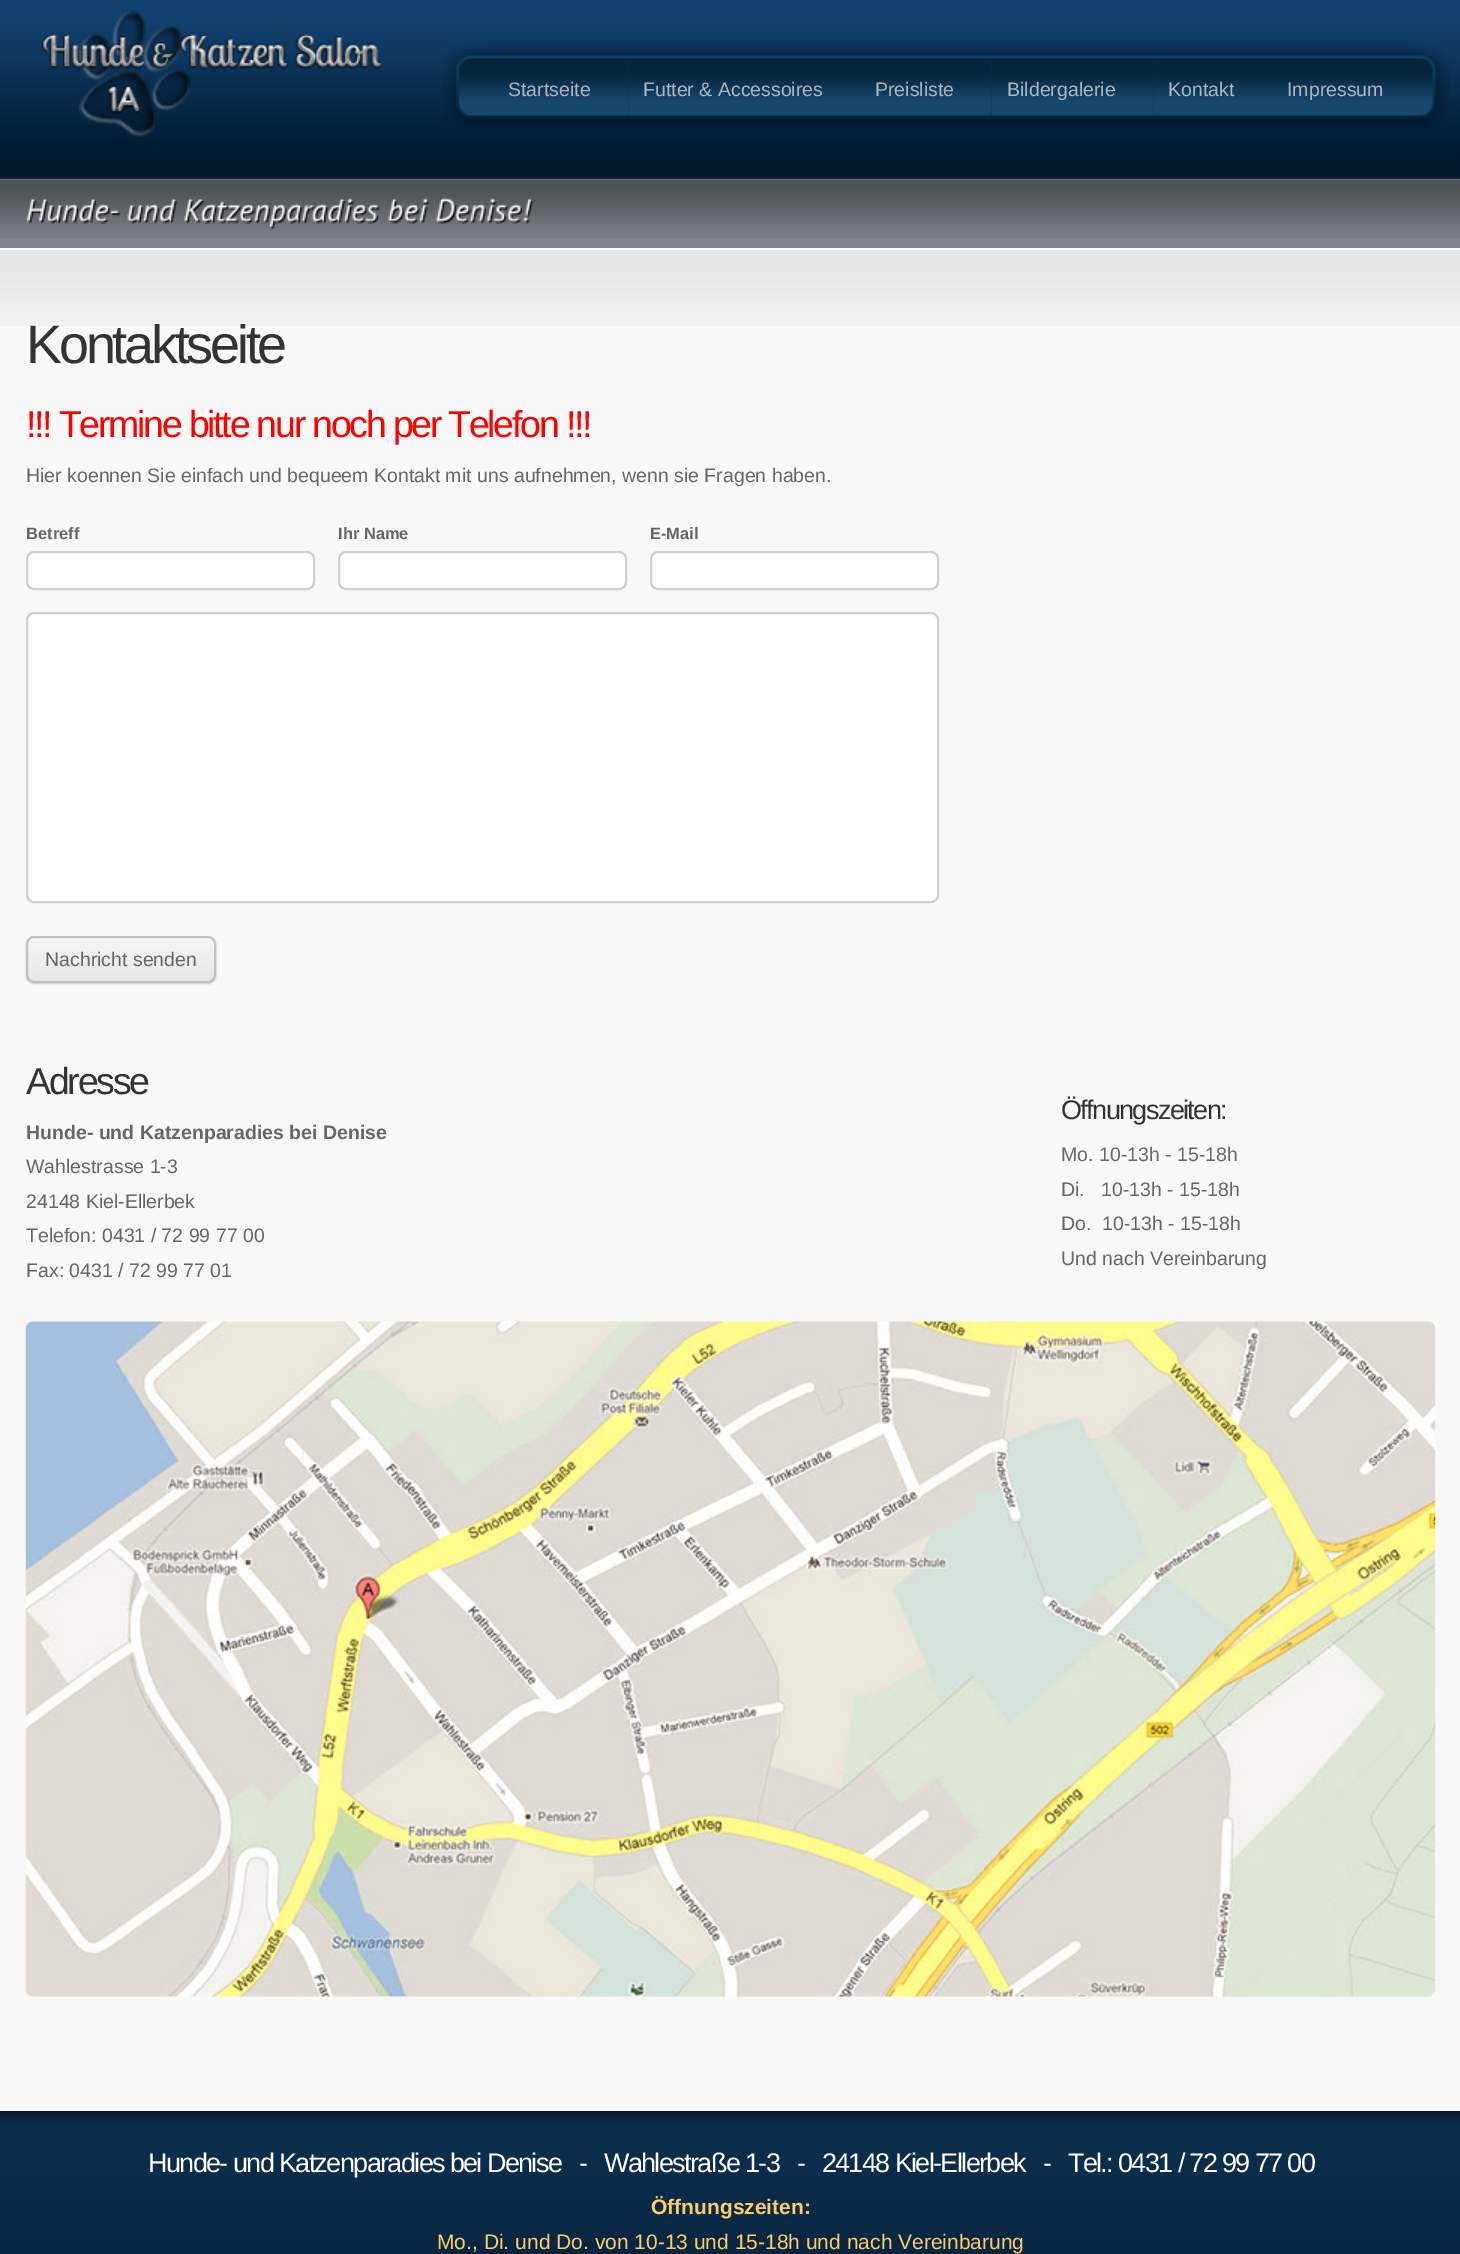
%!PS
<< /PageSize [1460 2254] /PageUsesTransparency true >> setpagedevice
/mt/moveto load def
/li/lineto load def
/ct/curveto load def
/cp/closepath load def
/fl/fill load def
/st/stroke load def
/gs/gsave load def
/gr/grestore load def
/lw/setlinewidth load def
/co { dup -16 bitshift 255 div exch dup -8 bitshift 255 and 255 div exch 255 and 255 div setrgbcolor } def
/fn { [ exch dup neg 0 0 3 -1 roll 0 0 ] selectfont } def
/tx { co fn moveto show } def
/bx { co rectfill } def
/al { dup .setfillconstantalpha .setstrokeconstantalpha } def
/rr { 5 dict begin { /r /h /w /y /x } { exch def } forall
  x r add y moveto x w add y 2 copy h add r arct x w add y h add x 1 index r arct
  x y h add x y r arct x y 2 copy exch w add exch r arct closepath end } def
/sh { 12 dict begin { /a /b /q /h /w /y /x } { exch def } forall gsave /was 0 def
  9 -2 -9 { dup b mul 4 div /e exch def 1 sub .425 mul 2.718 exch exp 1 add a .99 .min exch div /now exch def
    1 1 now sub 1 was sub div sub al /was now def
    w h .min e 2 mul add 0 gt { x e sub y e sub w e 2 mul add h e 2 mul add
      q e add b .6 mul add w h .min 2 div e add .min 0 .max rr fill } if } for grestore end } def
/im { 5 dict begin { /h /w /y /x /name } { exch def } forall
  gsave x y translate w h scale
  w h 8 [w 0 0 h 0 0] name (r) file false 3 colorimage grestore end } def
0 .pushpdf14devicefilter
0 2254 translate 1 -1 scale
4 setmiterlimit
0 0 1460 2254 16#FFFFFF bx
(media/9.raw) 0 178 1460 60 im
(media/1.raw) 0 0 1460 179 im
(media/2.raw) 41 10 341 127 im
(media/3.raw) 442 40 187 91 im
(media/4.raw) 628 40 233 91 im
(media/5.raw) 861 40 131 91 im
(media/6.raw) 991 40 163 91 im
(media/7.raw) 1153 40 119 91 im
(media/8.raw) 1272 40 178 91 im
0 238 1460 10 16#7E858C bx
(media/10.raw) 26 199 95 25 im
(media/11.raw) 127 199 51 25 im
(media/12.raw) 184 197 196 33 im
(media/13.raw) 388 197 42 27 im
(media/14.raw) 436 197 97 27 im
0 250 1460 1861 16#F8F8F8 bx
(media/15.raw) 0 250 1460 76 im
16#FFFFFF co
27 552 287 37 7 rr gs fl gr
16#CFCFCF co
2 lw
st
16#FFFFFF co
339 552 287 37 7 rr gs fl gr
16#CFCFCF co
st
16#FFFFFF co
651 552 287 37 7 rr gs fl gr
16#CFCFCF co
st
16#FFFFFF co
27 613 911 289 7 rr gs fl gr
16#CFCFCF co
st
gs
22 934 mt 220 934 li 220 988 li 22 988 li cp 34 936 mt 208 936 li 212.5 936 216 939.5 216 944 ct 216 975 li 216 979.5 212.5 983 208 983 ct 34 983 li 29.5 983 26 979.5 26 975 ct 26 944 li 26 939.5 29.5 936 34 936 ct cp eoclip newpath
16#CCCCCC co
26 938 190 46 8 1 1 sh
gr
16#E7E7E7 co
26 936 190 47 8 rr fl
(media/16.raw) 26 937 190 41 im
16#C2C2C2 co
27 937 188 45 7 rr st
(media/17.raw) 25 1321 1411 676 im
(media/18.raw) 0 2111 1460 143 im
(Startseite) 508 96 /LiberationSans-Regular 19.5 16#ACB6BF tx
(Futter & Accessoires) 643 96 /LiberationSans-Regular 19.5 16#ACB6BF tx
(Preisliste) 875 96 /LiberationSans-Regular 19.5 16#ACB6BF tx
(Bildergalerie) 1007 96 /LiberationSans-Regular 19.5 16#ACB6BF tx
(Kontakt) 1168 96 /LiberationSans-Regular 19.5 16#ACB6BF tx
(Impressum) 1287 96 /LiberationSans-Regular 19.5 16#ACB6BF tx
/LiberationSans-Regular 54 fn
16#333333 co
26 363 mt -3.25 0 (Kontaktseite) ashow
/LiberationSans-Regular 37.5 fn
16#FF0000 co
26 437 mt -2.25 0 (!!! Termine bitte nur noch per Telefon !!!) ashow
(Hier koennen Sie einfach und bequeem Kontakt mit uns aufnehmen, wenn sie Fragen haben.) 26 482 /LiberationSans-Regular 19.5 16#666666 tx
(Betreff) 26 539 /LiberationSans-Bold 16.5 16#666666 tx
(Ihr Name) 338 539 /LiberationSans-Bold 16.5 16#666666 tx
(E-Mail) 650 539 /LiberationSans-Bold 16.5 16#666666 tx
(Nachricht senden) 45 966 /LiberationSans-Regular 19.5 16#666666 tx
/LiberationSans-Regular 37.5 fn
16#333333 co
26 1094 mt -2.25 0 (Adresse) ashow
(Hunde- und Katzenparadies bei Denise) 26 1139 /LiberationSans-Bold 19.5 16#666666 tx
(Wahlestrasse 1-3) 26 1173 /LiberationSans-Regular 19.5 16#666666 tx
(24148 Kiel-Ellerbek) 26 1208 /LiberationSans-Regular 19.5 16#666666 tx
(Telefon: 0431 / 72 99 77 00) 26 1242 /LiberationSans-Regular 19.5 16#666666 tx
(Fax: 0431 / 72 99 77 01) 26 1277 /LiberationSans-Regular 19.5 16#666666 tx
/LiberationSans-Regular 27 fn
16#333333 co
1061 1119 mt -1.62 0 (Öffnungszeiten:) ashow
(Mo. 10-13h - 15-18h) 1061 1161 /LiberationSans-Regular 19.5 16#666666 tx
(Di.   10-13h - 15-18h) 1061 1196 /LiberationSans-Regular 19.5 16#666666 tx
(Do.  10-13h - 15-18h) 1061 1230 /LiberationSans-Regular 19.5 16#666666 tx
(Und nach Vereinbarung) 1061 1265 /LiberationSans-Regular 19.5 16#666666 tx
/LiberationSans-Regular 27 fn
16#FFFFFF co
148 2172 mt -1.62 0 (Hunde- und Katzenparadies bei Denise   -   Wahlestraße 1-3   -   24148 Kiel-Ellerbek   -   Tel.: 0431 / 72 99 77 00) ashow
(Öffnungszeiten:) 651 2214 /LiberationSans-Bold 21 16#FFCC66 tx
(Mo., Di. und Do. von 10-13 und 15-18h und nach Vereinbarung) 437 2249 /LiberationSans-Regular 21 16#FFCC66 tx
.poppdf14devicefilter showpage
